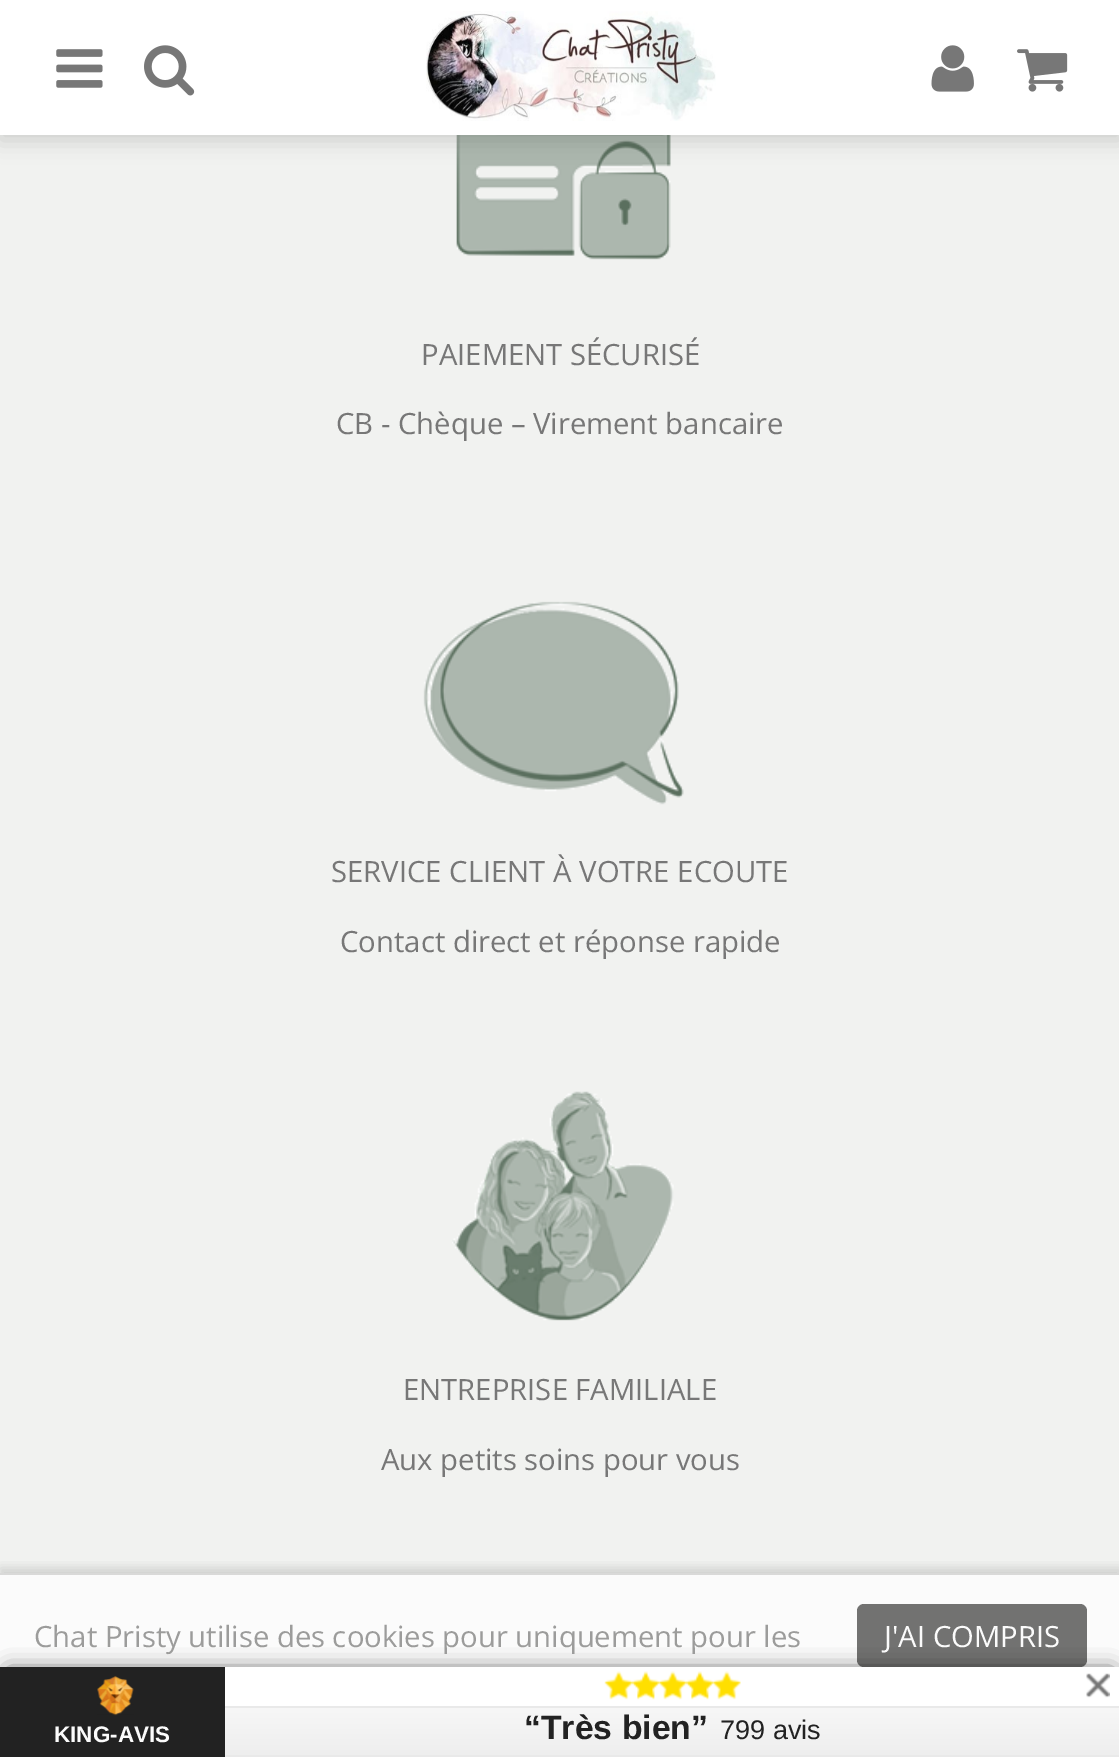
%!PS
<< /PageSize [1119 1757] /PageUsesTransparency true >> setpagedevice
/mt/moveto load def
/li/lineto load def
/cp/closepath load def
/fl/fill load def
/gs/gsave load def
/gr/grestore load def
/co { dup -16 bitshift 255 div exch dup -8 bitshift 255 and 255 div exch 255 and 255 div setrgbcolor } def
/fn { [ exch dup neg 0 0 3 -1 roll 0 0 ] selectfont } def
/tx { co fn moveto show } def
/bx { co rectfill } def
/al { dup .setfillconstantalpha .setstrokeconstantalpha } def
/rr { 5 dict begin { /r /h /w /y /x } { exch def } forall
  x r add y moveto x w add y 2 copy h add r arct x w add y h add x 1 index r arct
  x y h add x y r arct x y 2 copy exch w add exch r arct closepath end } def
/sh { 12 dict begin { /a /b /q /h /w /y /x } { exch def } forall gsave /was 0 def
  9 -2 -9 { dup b mul 4 div /e exch def 1 sub .425 mul 2.718 exch exp 1 add a .99 .min exch div /now exch def
    1 1 now sub 1 was sub div sub al /was now def
    w h .min e 2 mul add 0 gt { x e sub y e sub w e 2 mul add h e 2 mul add
      q e add b .6 mul add w h .min 2 div e add .min 0 .max rr fill } if } for grestore end } def
/im { 5 dict begin { /h /w /y /x /name } { exch def } forall
  gsave x y translate w h scale
  w h 8 [w 0 0 h 0 0] name (r) file false 3 colorimage grestore end } def
0 .pushpdf14devicefilter
0 1757 translate 1 -1 scale
4 setmiterlimit
0 0 1119 1757 16#F1F2F0 bx
(media/6.raw) 456 135 215 125 im
16#000000 co
0 5 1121 135 0 11 .15 sh
0 0 1119 135 16#FFFFFF bx
(media/1.raw) 56 49 47 39 im
(media/2.raw) 144 45 51 51 im
(media/3.raw) 426 11 290 110 im
(media/4.raw) 931 45 43 47 im
(media/5.raw) 1017 49 51 43 im
0 1575 1119 92 16#FBFBFB bx
(media/7.raw) 423 601 261 204 im
(media/8.raw) 452 1091 222 230 im
gs
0 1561 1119 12 rectclip
16#484948 co
0 1568 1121 185 0 5.5 .2 sh
gr
0 1573 1119 2 16#D9D9D8 bx
16#727271 co
857 1604 230 63 7 rr fl
16#000000 co
9 1672 1103 72 0 11 .75 sh
0 1667 225 90 16#222222 bx
(media/9.raw) 97 1676 37 40 im
gs 225 1708 mt 1119 1708 li 1119 1755 li 225 1755 li cp clip newpath
<< /ShadingType 2 /ColorSpace /DeviceRGB /Coords [673 1667 673 1755] /Extend [true true] /Function << /FunctionType 2 /Domain [0 1] /C0 [1 1 1] /C1 [.933 .933 .933] /N 1 >> >> shfill gr
225 1755 894 2 16#E9E9E9 bx
225 1667 894 39 16#FFFFFF bx
225 1706 894 2 16#E9E9E9 bx
(media/10.raw) 604 1671 29 29 im
(media/11.raw) 632 1671 28 29 im
(media/12.raw) 658 1671 29 29 im
(media/11.raw) 686 1671 28 29 im
(media/13.raw) 712 1671 29 29 im
(media/14.raw) 1086 1673 24 25 im
(PAIEMENT SÉCURISÉ) 421 365 /OpenSans-Regular 29.25 16#777777 tx
(CB - Chèque – Virement bancaire) 336 434 /OpenSans-Regular 29.25 16#777777 tx
(SERVICE CLIENT À VOTRE ECOUTE) 331 882 /OpenSans-Regular 29.25 16#777777 tx
(Contact direct et réponse rapide) 340 952 /OpenSans-Regular 29.25 16#777777 tx
(ENTREPRISE FAMILIALE) 403 1400 /OpenSans-Regular 29.25 16#777777 tx
(Aux petits soins pour vous) 381 1470 /OpenSans-Regular 29.25 16#777777 tx
(Chat Pristy utilise des cookies pour uniquement pour les) 34 1647 /OpenSans-Regular 29.25 16#9C9C9B tx
(J'AI COMPRIS) 884 1647 /OpenSans-Regular 29.25 16#FBFBFB tx
(KING-AVIS) 54 1742 /LiberationSans-Bold 22.5 16#FBFBFB tx
(“Très bien”) 524 1739 /LiberationSans-Bold 33.75 16#222222 tx
(799 avis) 720 1739 /LiberationSans-Regular 27 16#222222 tx
.poppdf14devicefilter showpage
